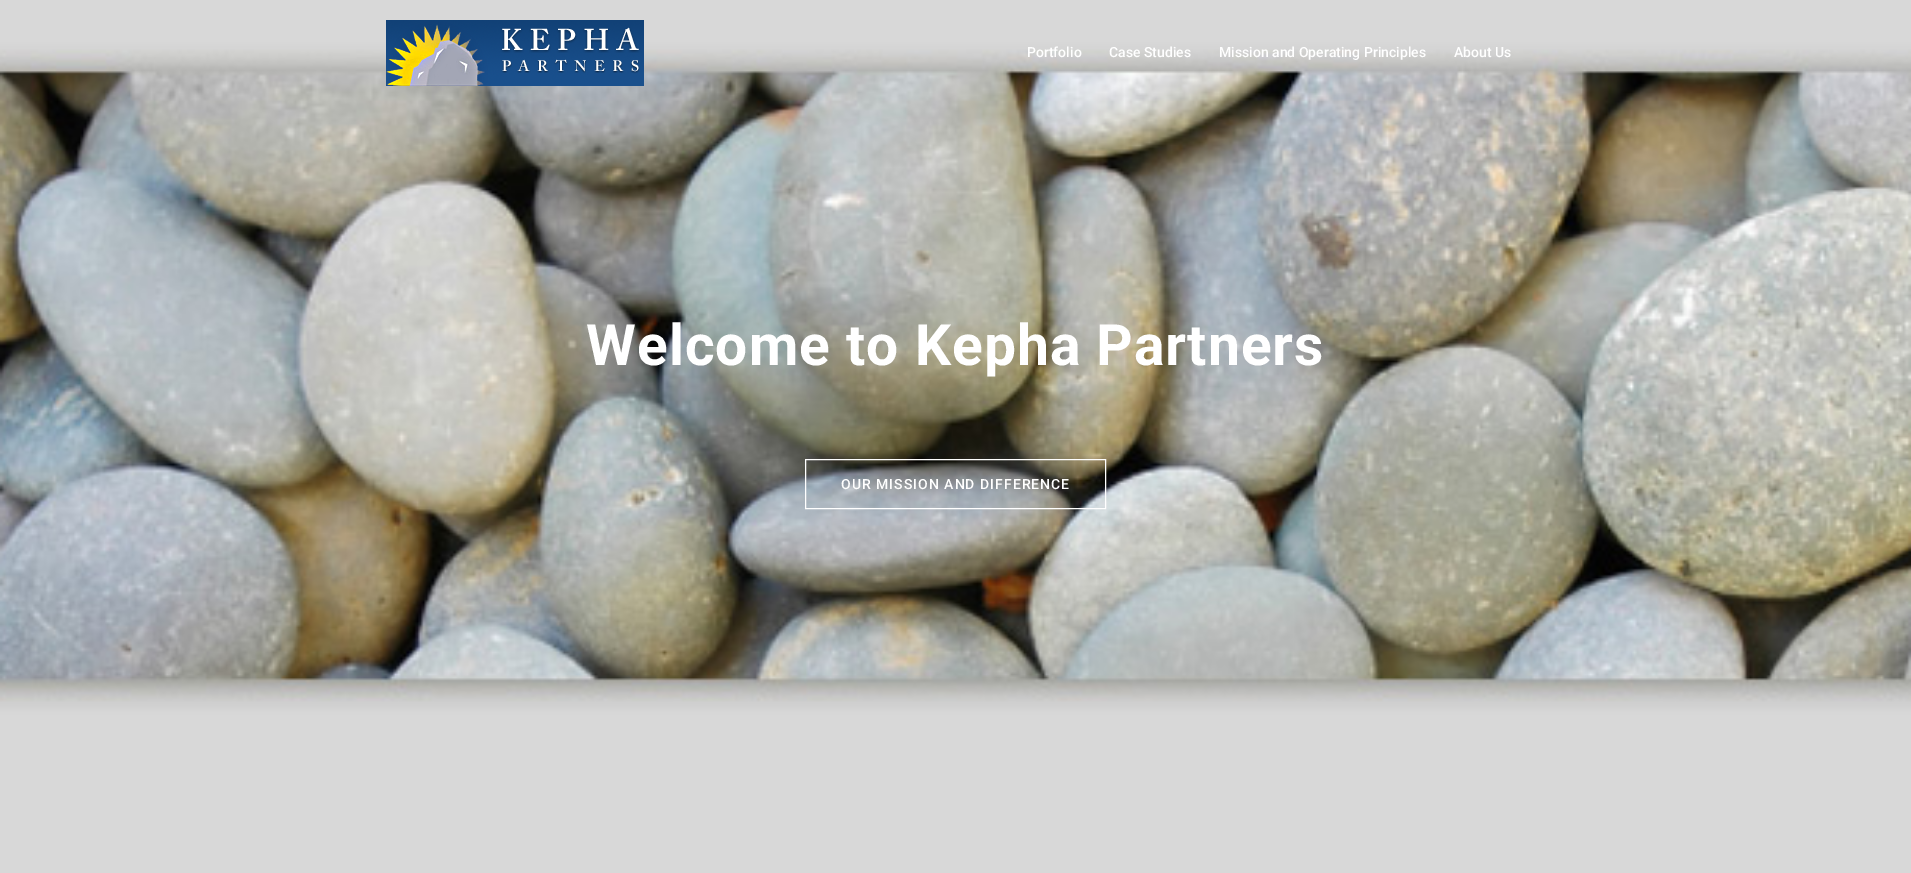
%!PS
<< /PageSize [1911 873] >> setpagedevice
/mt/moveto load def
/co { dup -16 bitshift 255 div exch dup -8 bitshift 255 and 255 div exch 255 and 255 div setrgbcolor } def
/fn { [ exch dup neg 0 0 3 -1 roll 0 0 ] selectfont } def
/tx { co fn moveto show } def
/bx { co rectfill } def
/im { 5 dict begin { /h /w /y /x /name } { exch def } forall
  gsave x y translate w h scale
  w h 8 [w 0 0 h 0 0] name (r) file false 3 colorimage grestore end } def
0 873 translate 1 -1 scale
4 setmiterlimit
0 0 1911 873 16#FFFFFF bx
(media/2.raw) 0 0 1911 873 im
(media/1.raw) 386 20 258 66 im
805.5 459.5 300 49 rectstroke
(Portfolio) 1027 57 /Roboto-Medium 14 16#FFFFFF tx
(Case Studies) 1109 57 /Roboto-Medium 14 16#FFFFFF tx
(Mission and Operating Principles) 1219 57 /Roboto-Medium 14 16#FFFFFF tx
(About Us) 1454 57 /Roboto-Medium 14 16#FFFFFF tx
/Roboto-Bold 57 fn
586 365 mt 1 0 (Welcome to Kepha Partners) ashow
/Roboto-Medium 14 fn
841 489 mt 1 0 (OUR MISSION AND DIFFERENCE) ashow
showpage
